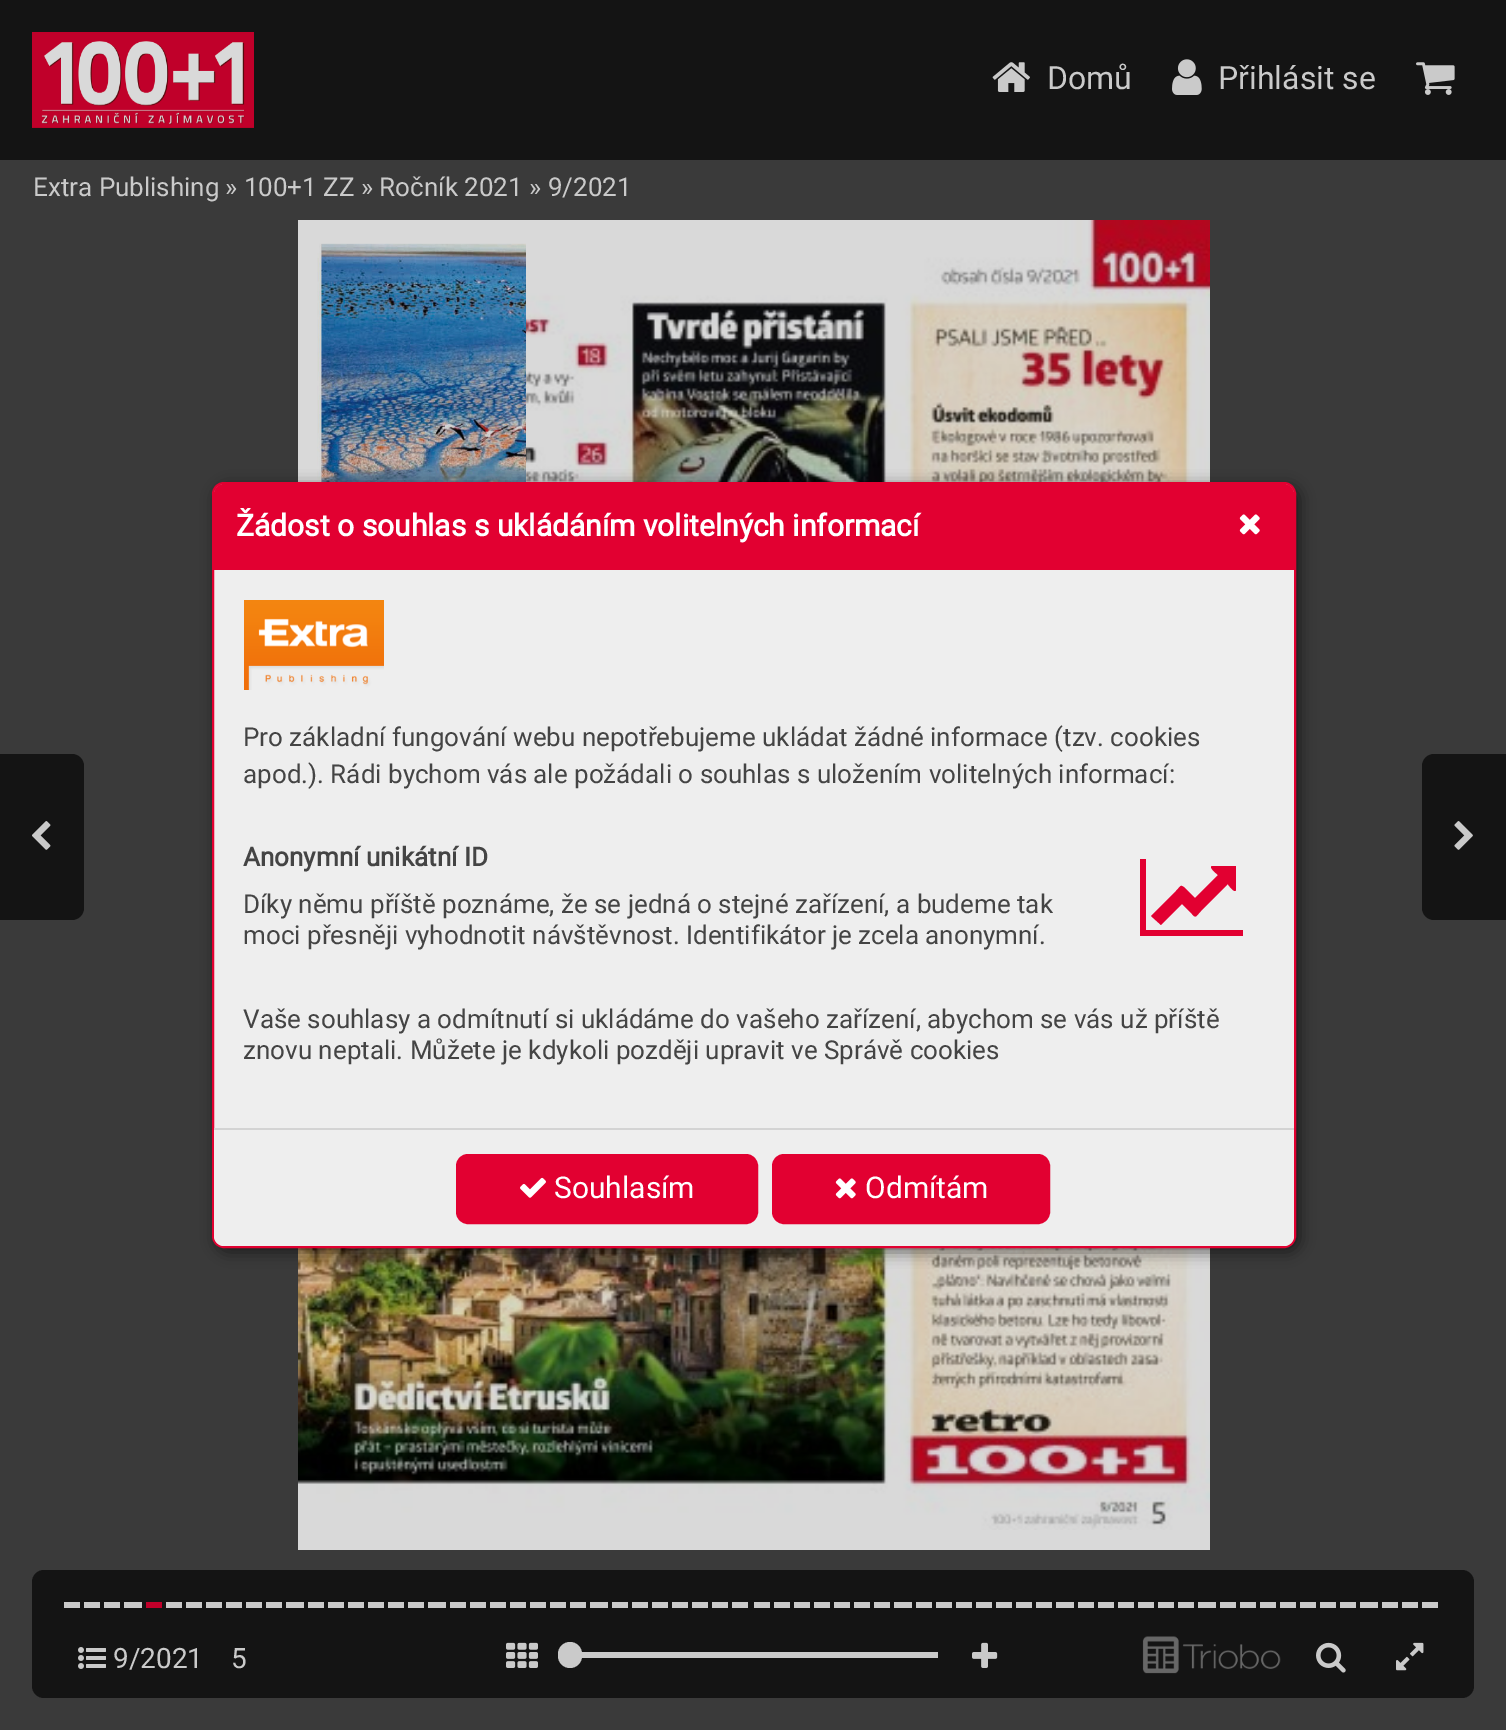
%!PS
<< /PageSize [1506 1730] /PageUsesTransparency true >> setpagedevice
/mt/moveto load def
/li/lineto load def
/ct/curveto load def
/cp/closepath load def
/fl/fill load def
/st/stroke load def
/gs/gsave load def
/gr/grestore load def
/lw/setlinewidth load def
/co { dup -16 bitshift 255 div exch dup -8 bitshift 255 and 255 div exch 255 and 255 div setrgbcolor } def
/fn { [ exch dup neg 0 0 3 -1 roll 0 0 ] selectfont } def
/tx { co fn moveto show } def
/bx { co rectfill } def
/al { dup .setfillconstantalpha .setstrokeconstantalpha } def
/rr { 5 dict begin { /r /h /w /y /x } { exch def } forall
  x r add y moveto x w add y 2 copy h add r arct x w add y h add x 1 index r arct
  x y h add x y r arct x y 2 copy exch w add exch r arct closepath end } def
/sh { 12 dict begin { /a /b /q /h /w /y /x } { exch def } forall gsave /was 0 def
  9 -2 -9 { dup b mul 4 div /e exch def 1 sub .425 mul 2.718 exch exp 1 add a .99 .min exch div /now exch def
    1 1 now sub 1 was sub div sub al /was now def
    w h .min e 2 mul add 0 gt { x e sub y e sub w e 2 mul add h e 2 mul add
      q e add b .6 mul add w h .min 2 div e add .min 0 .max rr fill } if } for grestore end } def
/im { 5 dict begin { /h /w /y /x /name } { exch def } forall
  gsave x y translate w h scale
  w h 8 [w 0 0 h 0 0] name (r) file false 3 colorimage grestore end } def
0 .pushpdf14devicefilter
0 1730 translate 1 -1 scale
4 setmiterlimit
0 0 1506 1730 16#3A3A3A bx
0 0 1506 160 16#141414 bx
(media/1.raw) 32 32 222 96 im
(media/2.raw) 992 62 38 30 im
(media/3.raw) 1172 59 30 36 im
(media/4.raw) 1416 62 39 33 im
0 754 mt 72 754 li 78.5 754 84 759.5 84 766 ct 84 908 li 84 914.5 78.5 920 72 920 ct 0 920 li cp fl
(media/5.raw) 32 821 19 29 im
1434 754 mt 1506 754 li 1506 920 li 1434 920 li 1427.5 920 1422 914.5 1422 908 ct 1422 766 li 1422 759.5 1427.5 754 1434 754 ct cp fl
(media/6.raw) 1454 821 19 29 im
32 1570 1442 128 12 rr fl
64 1602 16 6 16#CACACA bx
84 1602 16 6 16#CACACA bx
104 1602 16 6 16#CACACA bx
124 1602 18 6 16#CACACA bx
166 1602 16 6 16#CACACA bx
186 1602 16 6 16#CACACA bx
206 1602 16 6 16#CACACA bx
226 1602 16 6 16#CACACA bx
246 1602 16 6 16#CACACA bx
266 1602 16 6 16#CACACA bx
286 1602 18 6 16#CACACA bx
308 1602 16 6 16#CACACA bx
328 1602 16 6 16#CACACA bx
348 1602 16 6 16#CACACA bx
368 1602 16 6 16#CACACA bx
388 1602 16 6 16#CACACA bx
408 1602 16 6 16#CACACA bx
428 1602 18 6 16#CACACA bx
450 1602 16 6 16#CACACA bx
470 1602 16 6 16#CACACA bx
490 1602 16 6 16#CACACA bx
510 1602 16 6 16#CACACA bx
530 1602 16 6 16#CACACA bx
550 1602 16 6 16#CACACA bx
570 1602 16 6 16#CACACA bx
590 1602 18 6 16#CACACA bx
612 1602 16 6 16#CACACA bx
632 1602 16 6 16#CACACA bx
652 1602 16 6 16#CACACA bx
672 1602 16 6 16#CACACA bx
692 1602 16 6 16#CACACA bx
712 1602 16 6 16#CACACA bx
732 1602 16 6 16#CACACA bx
754 1602 16 6 16#CACACA bx
774 1602 16 6 16#CACACA bx
794 1602 16 6 16#CACACA bx
814 1602 16 6 16#CACACA bx
834 1602 16 6 16#CACACA bx
854 1602 16 6 16#CACACA bx
874 1602 16 6 16#CACACA bx
894 1602 18 6 16#CACACA bx
916 1602 16 6 16#CACACA bx
936 1602 16 6 16#CACACA bx
956 1602 16 6 16#CACACA bx
976 1602 16 6 16#CACACA bx
996 1602 16 6 16#CACACA bx
1016 1602 16 6 16#CACACA bx
1036 1602 16 6 16#CACACA bx
1056 1602 18 6 16#CACACA bx
1078 1602 16 6 16#CACACA bx
1098 1602 16 6 16#CACACA bx
1118 1602 16 6 16#CACACA bx
1138 1602 16 6 16#CACACA bx
1158 1602 16 6 16#CACACA bx
1178 1602 16 6 16#CACACA bx
1198 1602 18 6 16#CACACA bx
1220 1602 16 6 16#CACACA bx
1240 1602 16 6 16#CACACA bx
1260 1602 16 6 16#CACACA bx
1280 1602 16 6 16#CACACA bx
1300 1602 16 6 16#CACACA bx
1320 1602 16 6 16#CACACA bx
1340 1602 16 6 16#CACACA bx
1360 1602 18 6 16#CACACA bx
1382 1602 16 6 16#CACACA bx
1402 1602 16 6 16#CACACA bx
1422 1602 16 6 16#CACACA bx
146 1602 16 6 16#C0002A bx
(media/7.raw) 78 1647 28 22 im
(media/8.raw) 506 1642 32 26 im
581 1652 357 6 16#CACACA bx
558 1642 24 26 12 rr fl
(media/9.raw) 972 1642 26 26 im
(media/10.raw) 1142 1636 139 38 im
(media/11.raw) 1316 1642 30 31 im
(media/12.raw) 1396 1642 28 29 im
298 1530 912 20 16#D9D9D9 bx
(media/13.raw) 298 220 912 1310 im
(media/14.raw) 317 243 209 239 im
16#000000 co
216 486 1084 766 12 7.5 .53 sh
16#EEEEEE co
213 483 1082 764 11 rr gs fl gr
16#E20031 co
2 lw
st
224 484 mt 1284 484 li 1289.5 484 1294 488.5 1294 494 ct 1294 570 li 214 570 li 214 494 li 214 488.5 218.5 484 224 484 ct cp fl
(media/15.raw) 1239 514 21 21 im
(media/16.raw) 244 600 140 90 im
1243 930 mt 1243 936 li 1140 936 li 1140 859 li 1146 859 li 1146 930 li cp 1236 867 mt 1236 890 li 1235 894 1228 885 1228 884 ct 1201 911 li 1196 916 1196 919 1192 914 ct 1182 904 li 1161 925 li 1151 916 li 1176 891 li 1181 886 1180 884 1185 888 ct 1195 898 li 1218 875 li 1217 874 1208 867 1212 866 ct 1235 866 li 1236 866 1236 866 1236 867 ct cp fl
16#EEEEEE co
214 1128 mt 1294 1128 li 1294 1236 li 1294 1241.5 1289.5 1246 1284 1246 ct 224 1246 li 218.5 1246 214 1241.5 214 1236 ct cp fl
214 1128 1080 2 16#D3D3D3 bx
16#E20031 co
457 1155 300 68 11 rr gs fl gr
st
(media/17.raw) 520 1177 26 21 im
773 1155 276 68 11 rr gs fl gr
st
(media/15.raw) 835 1178 21 21 im
(Domů) 1047 89 /Roboto-Regular 32 16#CACACA tx
(Přihlásit se) 1218 89 /Roboto-Regular 32 16#CACACA tx
(Extra Publishing) 33 196 /Roboto-Regular 26 16#CACACA tx
(» 100+1 ZZ » Ročník 2021 » 9/2021) 225 196 /Roboto-Regular 26 16#CACACA tx
(9/2021) 113 1668 /Roboto-Regular 28 16#CACACA tx
(5) 231 1668 /Roboto-Regular 28 16#CACACA tx
(Žádost o souhlas s ukládáním volitelných informací) 236 536 /Roboto-Bold 30 16#FFFFFF tx
(Pro základní fungování webu nepotřebujeme ukládat žádné informace \(tzv. cookies) 243 746 /Roboto-Regular 26 16#444444 tx
(apod.\). Rádi bychom vás ale požádali o souhlas s uložením volitelných informací:) 243 783 /Roboto-Regular 26 16#444444 tx
(Anonymní unikátní ID) 243 866 /Roboto-Bold 26 16#444444 tx
(Díky němu příště poznáme, že se jedná o stejné zařízení, a budeme tak) 243 913 /Roboto-Regular 26 16#444444 tx
(moci přesněji vyhodnotit návštěvnost. Identifikátor je zcela anonymní.) 243 944 /Roboto-Regular 26 16#444444 tx
(Vaše souhlasy a odmítnutí si ukládáme do vašeho zařízení, abychom se vás už příště) 243 1028 /Roboto-Regular 26 16#444444 tx
(znovu neptali. Můžete je kdykoli později upravit ve Správě cookies) 243 1059 /Roboto-Regular 26 16#444444 tx
(Souhlasím) 554 1198 /Roboto-Regular 30 16#FFFFFF tx
(Odmítám) 865 1198 /Roboto-Regular 30 16#FFFFFF tx
.poppdf14devicefilter showpage
